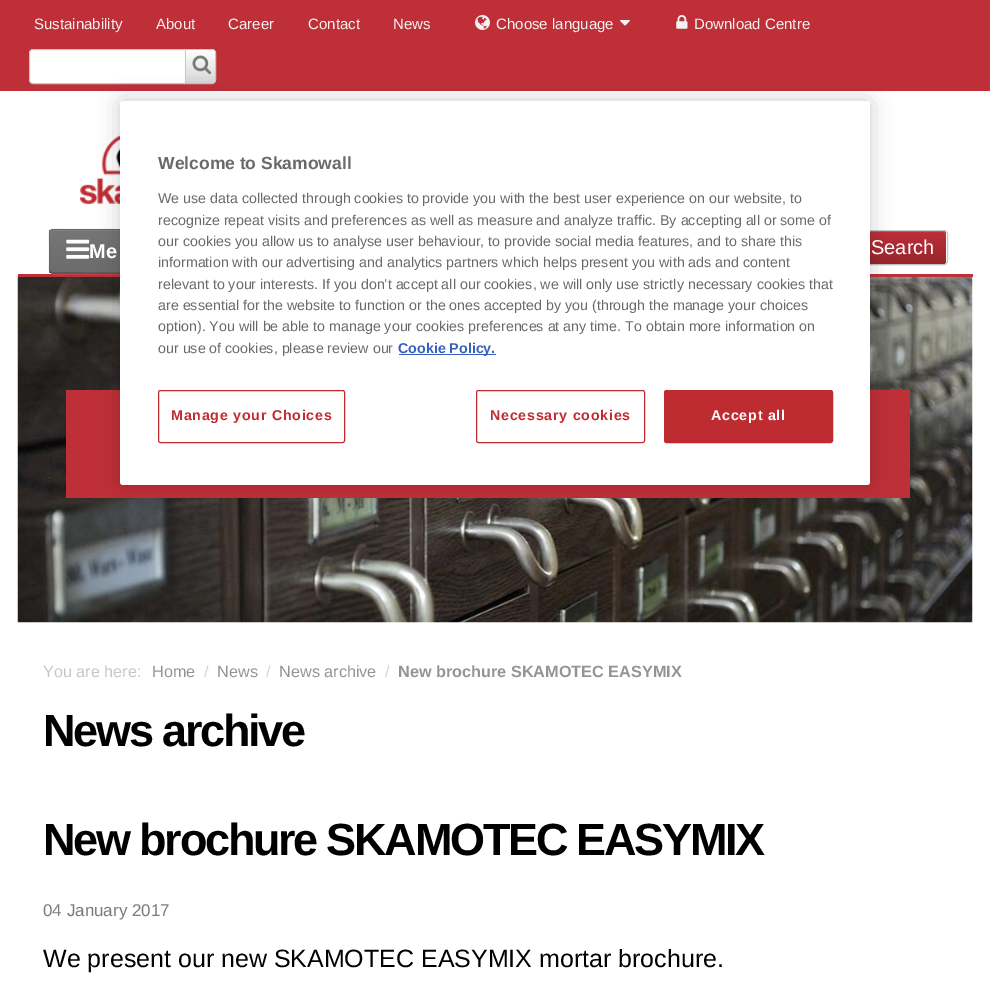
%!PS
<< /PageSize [990 1007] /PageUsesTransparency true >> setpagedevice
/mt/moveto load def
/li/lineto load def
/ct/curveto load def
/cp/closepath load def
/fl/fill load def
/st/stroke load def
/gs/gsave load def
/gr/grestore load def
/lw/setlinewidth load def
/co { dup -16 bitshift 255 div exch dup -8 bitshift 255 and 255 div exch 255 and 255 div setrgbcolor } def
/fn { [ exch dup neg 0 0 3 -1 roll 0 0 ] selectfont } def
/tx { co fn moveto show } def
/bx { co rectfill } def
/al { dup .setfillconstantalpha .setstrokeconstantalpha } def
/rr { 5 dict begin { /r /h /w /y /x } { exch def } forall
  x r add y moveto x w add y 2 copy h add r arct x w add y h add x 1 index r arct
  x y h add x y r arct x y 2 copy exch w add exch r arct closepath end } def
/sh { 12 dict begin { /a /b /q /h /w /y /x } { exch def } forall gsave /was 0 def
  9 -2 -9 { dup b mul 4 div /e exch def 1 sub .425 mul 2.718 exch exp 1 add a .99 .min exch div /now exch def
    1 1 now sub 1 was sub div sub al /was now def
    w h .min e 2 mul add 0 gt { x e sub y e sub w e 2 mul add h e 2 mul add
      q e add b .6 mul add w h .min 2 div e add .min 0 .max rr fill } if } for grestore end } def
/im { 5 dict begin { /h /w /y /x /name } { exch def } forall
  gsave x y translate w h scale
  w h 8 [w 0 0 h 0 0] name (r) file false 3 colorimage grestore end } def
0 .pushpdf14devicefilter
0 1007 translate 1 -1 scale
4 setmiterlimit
0 0 990 1007 16#FFFFFF bx
0 0 990 91 16#BF2F38 bx
(media/1.raw) 475 15 15 15 im
(media/2.raw) 620 20 10 6 im
(media/3.raw) 676 15 12 14 im
16#FFFFFF co
29.5 49.5 186 34 3.5 rr gs fl gr
16#C9C9C9 co
st
16#000000 co
185 51 30 33 4 1 .05 sh
gs 185 50 mt 211 50 li 213 50 215 52 215 54 ct 215 79 li 215 81 213 83 211 83 ct 185 83 li cp clip newpath
<< /ShadingType 2 /ColorSpace /DeviceRGB /Coords [201 50 201 83] /Extend [true true] /Function << /FunctionType 2 /Domain [0 1] /C0 [1 1 1] /C1 [.839 .839 .839] /N 1 >> >> shfill gr
185 50 1 33 16#C9C9C9 bx
(media/4.raw) 192 55 19 20 im
(media/5.raw) 80 135 40 70 im
(media/7.raw) 17 276 956 347 im
18 274 955 3 16#BF2F38 bx
0.07 al
16#FFFFFF co
49 271 mt 50 278 63 275 70 275 ct 138 275 li 161 275 159 279 159 259 ct 159 233 li 159 270 li 159 272 157 274 155 274 ct 52 274 li 51 274 50 273 49 271 ct cp fl
1 al
16#727272 co
49 229 110 45 4 rr fl
gs
49 229 110 45 4 rr clip newpath
gs 49 230 mt 120 230 li 120 273 li 49 273 li cp clip newpath
<< /ShadingType 2 /ColorSpace /DeviceRGB /Coords [104 230 104 273] /Extend [true true] /Function << /FunctionType 2 /Domain [0 1] /C0 [.463 .463 .463] /C1 [.424 .424 .424] /N 1 >> >> shfill gr
gr
16#848484 co
52 231 mt 155 231 li 156 231 158 232 158 234 ct 158 232 li 158 231 157 230 156 230 ct 52 230 li 51 230 50 231 50 232 ct 50 234 li 50 232 51 231 52 231 ct cp fl
0.25 al
16#000000 co
1.2 lw
157 272 mt 156.5 272.5 li 154.5 274 79 273 69.5 273 ct 52.5 273 li 50.5 272 li st
0.1 al
50.5 272 mt 48.5 270.5 49.5 265 49.5 264 ct 49.5 251 li 49.5 225.5 44.5 229.5 69.5 229.5 ct 138 229.5 li 163 229.5 158 225.5 158 251 ct 158 264 li 158 265 159 270.5 157 272 ct st
1 al
(media/6.raw) 66 239 24 20 im
16#C9C9C9 co
1 lw
540.5 230.5 407 34 3.5 rr st
16#000000 co
858 233 88 32 4 1 .05 sh
gs 858 231 mt 942 231 li 944 231 946 233 946 235 ct 946 260 li 946 262 944 264 942 264 ct 858 264 li cp clip newpath
<< /ShadingType 2 /ColorSpace /DeviceRGB /Coords [903 231 903 264] /Extend [true true] /Function << /FunctionType 2 /Domain [0 1] /C0 [.749 .184 .22] /C1 [.588 .145 .173] /N 1 >> >> shfill gr
0.2 al
16#FFFFFF co
859 232 mt 942 232 li 945 232 946 234 946 236 ct 946 235 li 946 233 944 231 942 231 ct 859 231 li cp fl
1 al
66 390 844 108 16#BF2F38 bx
16#000000 co
120 101 750 384 3 11 .2 sh
16#FFFFFF co
120 101 750 384 3 rr fl
399 354 97 1 16#3860BE bx
16#BE2B31 co
158.5 390.5 186 52 2 rr st
476.5 390.5 168 52 2 rr st
664.5 390.5 168 52 2 rr gs fl gr
st
(Sustainability) 34 29 /LiberationSans-Regular 15 16#F2F2F2 tx
(About) 156 29 /LiberationSans-Regular 15 16#F2F2F2 tx
(Career) 228 29 /LiberationSans-Regular 15 16#F2F2F2 tx
(Contact) 308 29 /LiberationSans-Regular 15 16#F2F2F2 tx
(News) 393 29 /LiberationSans-Regular 15 16#F2F2F2 tx
(Choose language) 496 29 /LiberationSans-Regular 15 16#F2F2F2 tx
(Download Centre) 694 29 /LiberationSans-Regular 15 16#F2F2F2 tx
(Welcome to Skamowall) 158 169 /LiberationSans-Bold 17.5 16#696969 tx
(We use data collected through cookies to provide you with the best user experience on our website, to) 158 203 /LiberationSans-Regular 14.25 16#696969 tx
(recognize repeat visits and preferences as well as measure and analyze traffic. By accepting all or some of) 158 225 /LiberationSans-Regular 14.25 16#696969 tx
(our cookies you allow us to analyse user behaviour, to provide social media features, and to share this) 158 246 /LiberationSans-Regular 14.25 16#696969 tx
(information with our advertising and analytics partners which helps present you with ads and content) 158 267 /LiberationSans-Regular 14.25 16#696969 tx
(relevant to your interests. If you don’t accept all our cookies, we will only use strictly necessary cookies that) 158 289 /LiberationSans-Regular 14.25 16#696969 tx
(are essential for the website to function or the ones accepted by you \(through the manage your choices) 158 310 /LiberationSans-Regular 14.25 16#696969 tx
(option\). You will be able to manage your cookies preferences at any time. To obtain more information on) 158 331 /LiberationSans-Regular 14.25 16#696969 tx
(our use of cookies, please review our) 158 353 /LiberationSans-Regular 14.25 16#696969 tx
(Cookie Policy.) 398 353 /LiberationSans-Bold 14.25 16#3860BE tx
16#BE2B31 co
171 420 mt .75 0 (Manage your Choices) ashow
490 420 mt .75 0 (Necessary cookies) ashow
16#FFFFFF co
711 420 mt .75 0 (Accept all) ashow
(Me) 89 258 /LiberationSans-Bold 20 16#FFFFFF tx
(Search) 871 254 /LiberationSans-Regular 20 16#FFFFFF tx
(You are here:) 43 677 /LiberationSans-Regular 16.25 16#C7C7C7 tx
(Home) 152 677 /LiberationSans-Regular 16.25 16#949494 tx
(/) 204 677 /LiberationSans-Regular 16.25 16#D3D3D3 tx
(News) 217 677 /LiberationSans-Regular 16.25 16#949494 tx
(/) 266 677 /LiberationSans-Regular 16.25 16#D3D3D3 tx
(News archive) 279 677 /LiberationSans-Regular 16.25 16#949494 tx
(/) 385 677 /LiberationSans-Regular 16.25 16#D3D3D3 tx
(New brochure SKAMOTEC EASYMIX) 398 677 /LiberationSans-Bold 16.25 16#949494 tx
/LiberationSans-Bold 45 fn
16#000000 co
43 746 mt -2.25 0 (News archive) ashow
43 855 mt -2.25 0 (New brochure SKAMOTEC EASYMIX) ashow
(04 January 2017) 43 916 /LiberationSans-Regular 17 16#7A7A7A tx
(We present our new SKAMOTEC EASYMIX mortar brochure.) 43 967 /LiberationSans-Regular 25 16#000000 tx
.poppdf14devicefilter showpage
